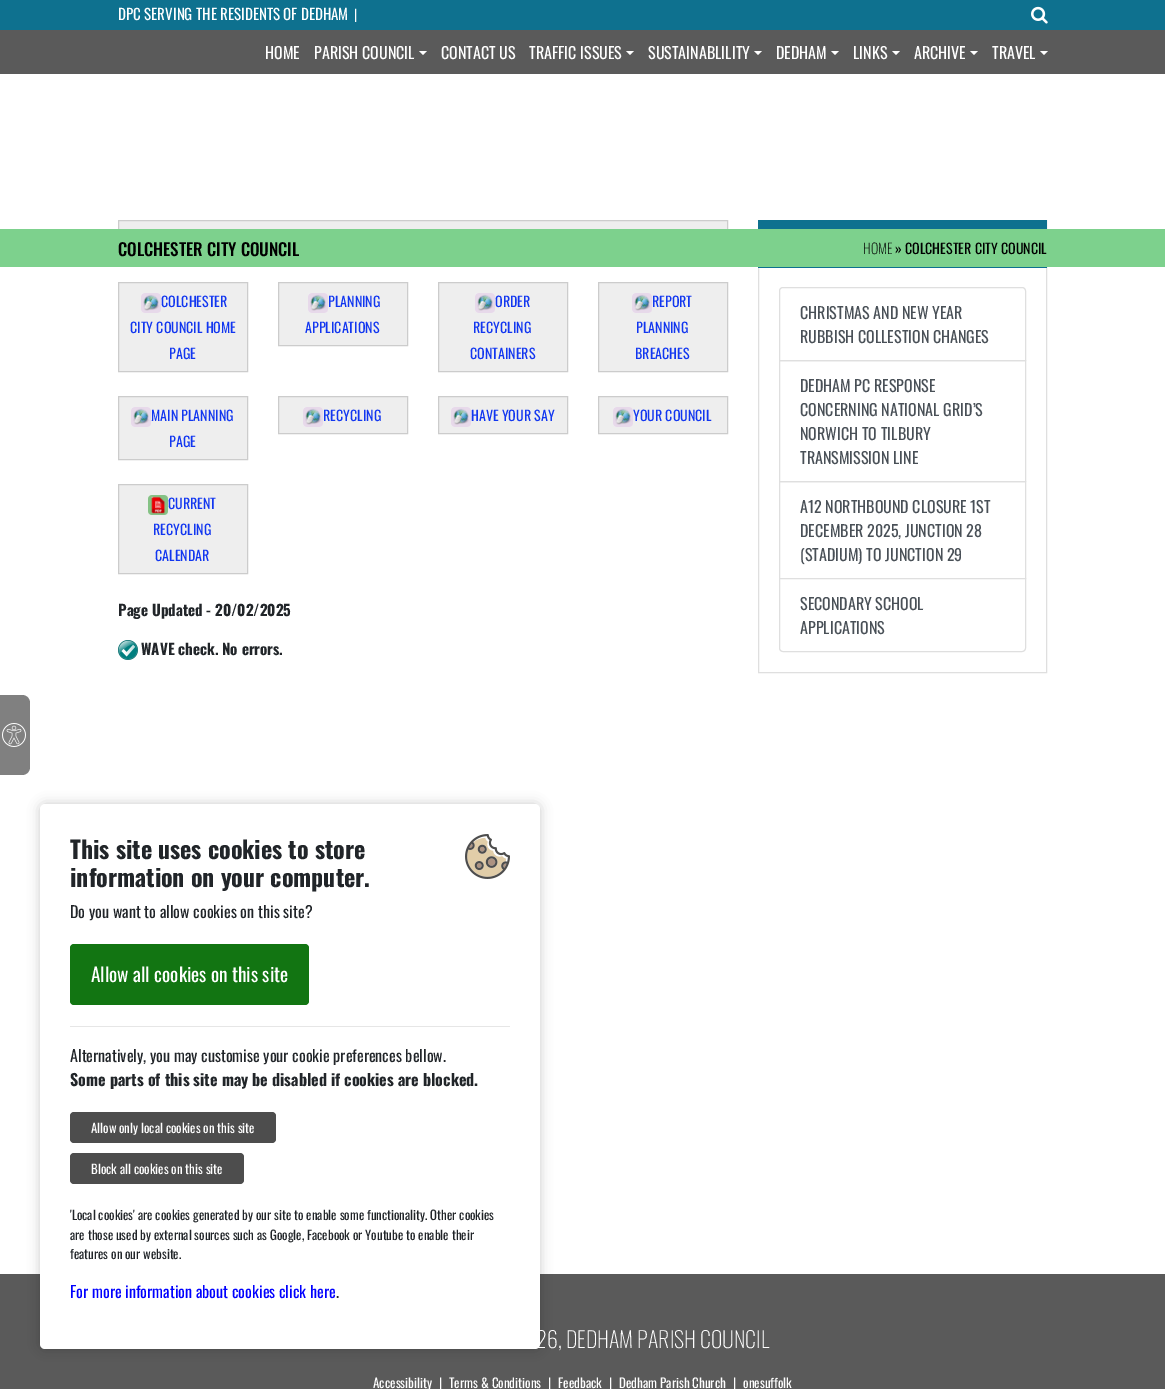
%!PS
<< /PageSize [1165 1389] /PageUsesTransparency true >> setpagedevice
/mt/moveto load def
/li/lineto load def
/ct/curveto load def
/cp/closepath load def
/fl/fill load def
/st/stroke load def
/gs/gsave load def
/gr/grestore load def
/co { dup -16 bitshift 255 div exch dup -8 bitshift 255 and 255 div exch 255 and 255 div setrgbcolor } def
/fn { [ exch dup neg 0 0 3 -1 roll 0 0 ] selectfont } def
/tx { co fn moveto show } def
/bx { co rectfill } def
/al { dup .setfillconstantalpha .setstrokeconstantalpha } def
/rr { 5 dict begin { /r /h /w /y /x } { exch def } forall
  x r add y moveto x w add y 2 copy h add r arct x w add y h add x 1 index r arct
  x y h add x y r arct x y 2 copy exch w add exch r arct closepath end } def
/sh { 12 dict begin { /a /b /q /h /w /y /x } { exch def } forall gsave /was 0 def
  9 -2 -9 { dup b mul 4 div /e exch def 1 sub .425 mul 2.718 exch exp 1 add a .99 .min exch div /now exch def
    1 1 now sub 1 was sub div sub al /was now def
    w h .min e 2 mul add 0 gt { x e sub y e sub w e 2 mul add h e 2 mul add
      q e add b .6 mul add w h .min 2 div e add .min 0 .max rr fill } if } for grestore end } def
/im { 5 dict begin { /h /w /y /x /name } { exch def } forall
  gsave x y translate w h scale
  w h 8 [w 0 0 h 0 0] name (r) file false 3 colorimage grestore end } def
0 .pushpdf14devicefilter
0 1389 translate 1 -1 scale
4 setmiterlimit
0 0 1165 1389 16#FFFFFF bx
0 0 1165 30 16#0E718F bx
(media/1.raw) 1031 6 17 18 im
0 30 1165 44 16#5A5A5A bx
16#FFFFFF co
419 51 mt 427 51 li 423 55 li cp fl
626 51 mt 634 51 li 630 55 li cp fl
754 51 mt 762 51 li 758 55 li cp fl
831 51 mt 839 51 li 835 55 li cp fl
892 51 mt 900 51 li 896 55 li cp fl
970 51 mt 978 51 li 974 55 li cp fl
1040 51 mt 1048 51 li 1044 55 li cp fl
119 221 608 8 16#EEEEEE bx
16#CCCCCC co
118.5 220.5 609 37 rectstroke
16#DFDFDF co
758.5 220.5 288 452 rectstroke
758 220 289 48 16#0E718F bx
0 229 1165 38 16#7DD18D bx
16#EEEEEE co
118.5 282.5 mt 247.5 282.5 li 247.5 371.5 li 118.5 371.5 li cp gs fl gr
16#CCCCCC co
st
(media/2.raw) 141 293 20 20 im
16#EEEEEE co
278.5 282.5 mt 407.5 282.5 li 407.5 345.5 li 278.5 345.5 li cp gs fl gr
16#CCCCCC co
st
(media/3.raw) 308 293 20 20 im
16#EEEEEE co
438.5 282.5 mt 567.5 282.5 li 567.5 371.5 li 438.5 371.5 li cp gs fl gr
16#CCCCCC co
st
(media/4.raw) 475 293 20 20 im
16#EEEEEE co
598.5 282.5 mt 727.5 282.5 li 727.5 371.5 li 598.5 371.5 li cp gs fl gr
16#CCCCCC co
st
(media/4.raw) 632 293 20 20 im
16#EEEEEE co
118.5 396.5 mt 247.5 396.5 li 247.5 459.5 li 118.5 459.5 li cp gs fl gr
16#CCCCCC co
st
(media/2.raw) 131 407 20 20 im
16#EEEEEE co
278.5 396.5 mt 407.5 396.5 li 407.5 433.5 li 278.5 433.5 li cp gs fl gr
16#CCCCCC co
st
(media/2.raw) 303 407 20 20 im
16#EEEEEE co
438.5 396.5 mt 567.5 396.5 li 567.5 433.5 li 438.5 433.5 li cp gs fl gr
16#CCCCCC co
st
(media/2.raw) 451 407 20 20 im
16#EEEEEE co
598.5 396.5 mt 727.5 396.5 li 727.5 433.5 li 598.5 433.5 li cp gs fl gr
16#CCCCCC co
st
(media/2.raw) 613 407 20 20 im
16#EEEEEE co
118.5 484.5 mt 247.5 484.5 li 247.5 573.5 li 118.5 573.5 li cp gs fl gr
16#CCCCCC co
st
(media/5.raw) 148 495 20 20 im
(media/6.raw) 118 640 20 20 im
16#DFDFDF co
783 287.5 mt 1022 287.5 li 1024 287.5 1025.5 289 1025.5 291 ct 1025.5 360.5 li 779.5 360.5 li 779.5 291 li 779.5 289 781 287.5 783 287.5 ct cp st
779.5 360.5 246 121 rectstroke
779.5 481.5 246 97 rectstroke
16#FFFFFF co
779.5 578.5 mt 1025.5 578.5 li 1025.5 648 li 1025.5 650 1024 651.5 1022 651.5 ct 783 651.5 li 781 651.5 779.5 650 779.5 648 ct cp gs fl gr
16#DFDFDF co
st
16#808080 co
0 695 mt 22 695 li 26.5 695 30 698.5 30 703 ct 30 767 li 30 771.5 26.5 775 22 775 ct 0 775 li cp fl
(media/7.raw) 2 723 24 24 im
0 1274 1165 115 16#5A5A5A bx
16#000000 co
40 804 500 545 5 6 .2 sh
16#FFFFFF co
40 804 500 545 5 rr fl
(media/8.raw) 465 834 45 45 im
16#127512 co
70 944 239 61 4 rr fl
70 1026 440 1 16#E6E6E6 bx
16#4D4D4D co
70 1112 206 31 4 rr fl
70 1153 174 31 4 rr fl
(DPC SERVING THE RESIDENTS OF DEDHAM) 118 20 /Oswald-Regular 15 16#FFFFFF tx
(|) 354 20 /Oswald-Regular 14 16#FFFFFF tx
(HOME) 265 59 /Oswald-Regular 16 16#FFFFFF tx
(PARISH COUNCIL) 314 59 /Oswald-Regular 16 16#FFFFFF tx
(CONTACT US) 441 59 /Oswald-Regular 16 16#FFFFFF tx
(TRAFFIC ISSUES) 529 59 /Oswald-Regular 16 16#FFFFFF tx
(SUSTAINABLILITY) 648 59 /Oswald-Regular 16 16#FFFFFF tx
(DEDHAM) 776 59 /Oswald-Regular 16 16#FFFFFF tx
(LINKS) 853 59 /Oswald-Regular 16 16#FFFFFF tx
(ARCHIVE) 914 59 /Oswald-Regular 16 16#FFFFFF tx
(TRAVEL) 992 59 /Oswald-Regular 16 16#FFFFFF tx
(COLCHESTER CITY COUNCIL) 118 256 /Oswald-Medium 17 16#000000 tx
(HOME) 863 254 /Oswald-ExtraLight 14 16#000000 tx
(» COLCHESTER CITY COUNCIL) 895 254 /Oswald-Regular 14 16#000000 tx
(COLCHESTER) 161 307 /Oswald-Regular 14 16#1136F0 tx
(CITY COUNCIL HOME) 130 333 /Oswald-Regular 14 16#1136F0 tx
(PAGE) 169 359 /Oswald-Regular 14 16#1136F0 tx
(PLANNING) 328 307 /Oswald-Regular 14 16#1136F0 tx
(APPLICATIONS) 305 333 /Oswald-Regular 14 16#1136F0 tx
(ORDER) 495 307 /Oswald-Regular 14 16#1136F0 tx
(RECYCLING) 473 333 /Oswald-Regular 14 16#1136F0 tx
(CONTAINERS) 470 359 /Oswald-Regular 14 16#1136F0 tx
(REPORT) 652 307 /Oswald-Regular 14 16#1136F0 tx
(PLANNING) 636 333 /Oswald-Regular 14 16#1136F0 tx
(BREACHES) 635 359 /Oswald-Regular 14 16#1136F0 tx
(MAIN PLANNING) 151 421 /Oswald-Regular 14 16#1136F0 tx
(PAGE) 169 447 /Oswald-Regular 14 16#1136F0 tx
(RECYCLING) 323 421 /Oswald-Regular 14 16#1136F0 tx
(HAVE YOUR SAY) 471 421 /Oswald-Regular 14 16#1136F0 tx
(YOUR COUNCIL) 633 421 /Oswald-Regular 14 16#1136F0 tx
(CURRENT) 168 509 /Oswald-Regular 14 16#1136F0 tx
(RECYCLING) 153 535 /Oswald-Regular 14 16#1136F0 tx
(CALENDAR) 155 561 /Oswald-Regular 14 16#1136F0 tx
(Page Updated - 20/02/2025) 118 616 /Oswald-Bold 15 16#212529 tx
(WAVE check. No errors.) 141 655 /Oswald-Bold 15 16#212529 tx
(CHRISTMAS AND NEW YEAR) 800 319 /Oswald-Regular 16 16#495057 tx
(RUBBISH COLLESTION CHANGES) 800 343 /Oswald-Regular 16 16#495057 tx
(DEDHAM PC RESPONSE) 800 392 /Oswald-Regular 16 16#495057 tx
(CONCERNING NATIONAL GRID’S) 800 416 /Oswald-Regular 16 16#495057 tx
(NORWICH TO TILBURY) 800 440 /Oswald-Regular 16 16#495057 tx
(TRANSMISSION LINE) 800 464 /Oswald-Regular 16 16#495057 tx
(A12 NORTHBOUND CLOSURE 1ST) 800 513 /Oswald-Regular 16 16#495057 tx
(DECEMBER 2025, JUNCTION 28) 800 537 /Oswald-Regular 16 16#495057 tx
(\(STADIUM\) TO JUNCTION 29) 800 561 /Oswald-Regular 16 16#495057 tx
(SECONDARY SCHOOL) 800 610 /Oswald-Regular 16 16#495057 tx
(APPLICATIONS) 800 634 /Oswald-Regular 16 16#495057 tx
(This site uses cookies to store) 70 859 /Oswald-Bold 24 16#212529 tx
(information on your computer.) 70 887 /Oswald-Bold 24 16#212529 tx
(Do you want to allow cookies on this site?) 70 918 /Oswald-Regular 16 16#212529 tx
(Allow all cookies on this site) 91 982 /Oswald-Regular 19.25 16#FFFFFF tx
(Alternatively, you may customise your cookie preferences bellow.) 70 1062 /Oswald-Regular 16 16#212529 tx
(Some parts of this site may be disabled if cookies are blocked.) 70 1086 /Oswald-Bold 16 16#212529 tx
(Allow only local cookies on this site) 91 1133 /Oswald-Regular 12.8 16#FFFFFF tx
(Block all cookies on this site) 91 1174 /Oswald-Regular 12.8 16#FFFFFF tx
('Local cookies' are cookies generated by our site to enable some functionality. Other cookies) 70 1220 /Oswald-Regular 12.8 16#212529 tx
(are those used by external sources such as Google, Facebook or Youtube to enable their) 70 1240 /Oswald-Regular 12.8 16#212529 tx
(features on our website.) 70 1259 /Oswald-Regular 12.8 16#212529 tx
(For more information about cookies click here) 70 1298 /Oswald-Regular 16 16#0000FF tx
(.) 336 1298 /Oswald-Regular 16 16#212529 tx
(26, DEDHAM PARISH COUNCIL) 536 1348 /Oswald-ExtraLight 22 16#FFFFFF tx
(Accessibility) 373 1388 /Oswald-Regular 13 16#FFFFFF tx
(|) 439 1388 /Oswald-Regular 13 16#FFFFFF tx
(Terms & Conditions) 449 1388 /Oswald-Regular 13 16#FFFFFF tx
(|) 548 1388 /Oswald-Regular 13 16#FFFFFF tx
(Feedback) 558 1388 /Oswald-Regular 13 16#FFFFFF tx
(|) 609 1388 /Oswald-Regular 13 16#FFFFFF tx
(Dedham Parish Church) 619 1388 /Oswald-Regular 13 16#FFFFFF tx
(|) 733 1388 /Oswald-Regular 13 16#FFFFFF tx
(onesuffolk) 743 1388 /Oswald-Regular 13 16#FFFFFF tx
.poppdf14devicefilter showpage
